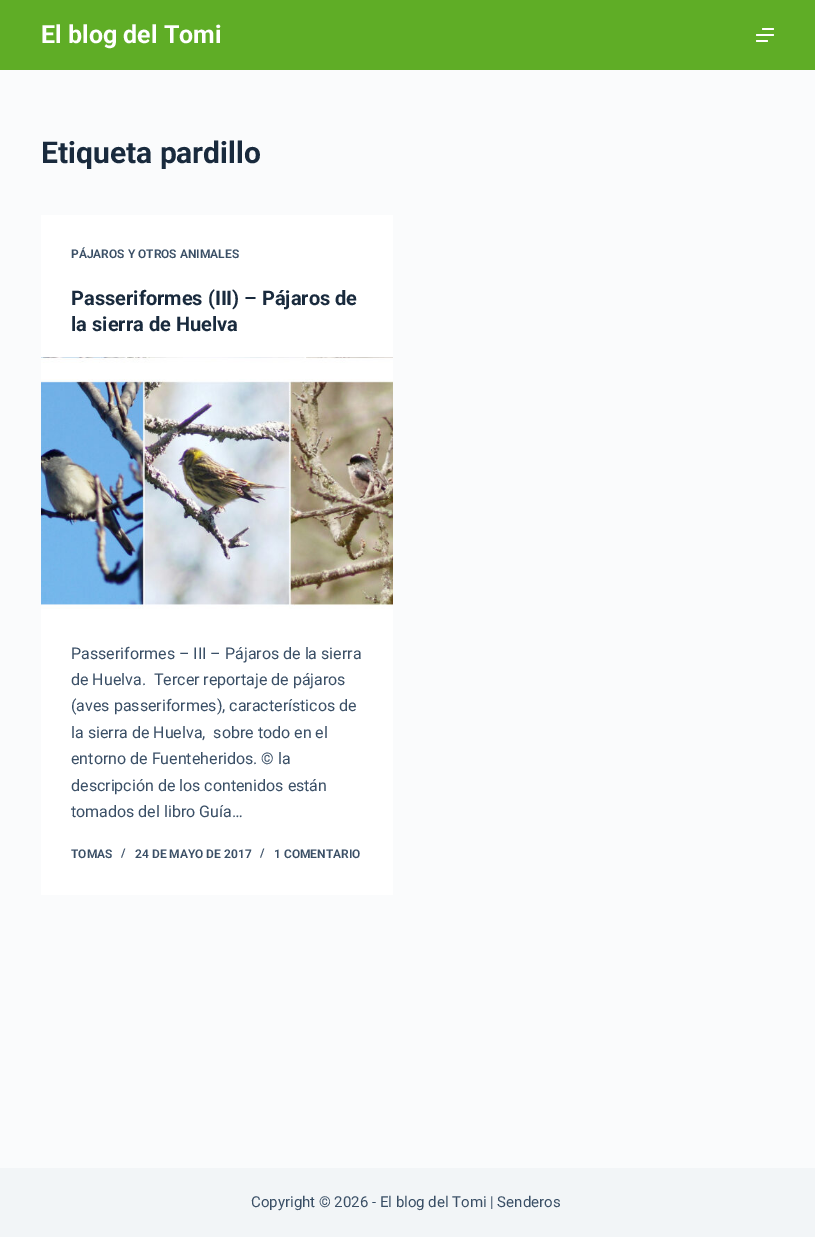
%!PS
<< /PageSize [815 1237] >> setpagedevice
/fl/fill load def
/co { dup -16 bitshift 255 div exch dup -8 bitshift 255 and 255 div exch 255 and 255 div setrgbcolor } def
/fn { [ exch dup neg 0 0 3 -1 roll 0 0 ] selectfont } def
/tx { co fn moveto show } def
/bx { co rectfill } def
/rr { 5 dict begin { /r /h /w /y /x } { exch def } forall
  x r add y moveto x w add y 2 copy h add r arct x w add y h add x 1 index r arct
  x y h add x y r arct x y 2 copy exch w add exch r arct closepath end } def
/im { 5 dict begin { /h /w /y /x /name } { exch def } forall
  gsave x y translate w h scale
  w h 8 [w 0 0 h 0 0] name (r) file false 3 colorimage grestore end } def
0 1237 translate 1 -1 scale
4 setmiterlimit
0 0 815 1237 16#FAFBFC bx
0 0 815 70 16#5FAD26 bx
16#FFFFFF co
762 28 12 2 1 rr fl
756 34 18 2 1 rr fl
756 40 12 2 1 rr fl
41 215 352 680 16#FFFFFF bx
(media/1.raw) 41 357 352 252 im
0 1168 815 69 16#F2F5F7 bx
(El blog del Tomi) 41 43 /Roboto-Bold 25 16#FFFFFF tx
(Etiqueta pardillo) 41 163 /Roboto-Bold 30 16#192A3D tx
(PÁJAROS Y OTROS ANIMALES) 71 258 /Roboto-SemiBold 12 16#3A4F66 tx
(Passeriformes \(III\) – Pájaros de) 71 305 /Roboto-Bold 20 16#192A3D tx
(la sierra de Huelva) 71 331 /Roboto-Bold 20 16#192A3D tx
(Passeriformes – III – Pájaros de la sierra) 71 659 /Roboto-Regular 16 16#3A4F66 tx
(de Huelva.  Tercer reportaje de pájaros) 71 685 /Roboto-Regular 16 16#3A4F66 tx
(\(aves passeriformes\), característicos de) 71 711 /Roboto-Regular 16 16#3A4F66 tx
(la sierra de Huelva,  sobre todo en el) 71 738 /Roboto-Regular 16 16#3A4F66 tx
(entorno de Fuenteheridos. © la) 71 764 /Roboto-Regular 16 16#3A4F66 tx
(descripción de los contenidos están) 71 791 /Roboto-Regular 16 16#3A4F66 tx
(tomados del libro Guía…) 71 817 /Roboto-Regular 16 16#3A4F66 tx
(TOMAS) 71 858 /Roboto-SemiBold 12 16#3A4F66 tx
(/) 121 857 /Roboto-SemiBold 12 16#3A4F66 tx
(24 DE MAYO DE 2017) 135 858 /Roboto-SemiBold 12 16#3A4F66 tx
(/) 260 857 /Roboto-SemiBold 12 16#3A4F66 tx
(1 COMENTARIO) 274 858 /Roboto-SemiBold 12 16#3A4F66 tx
(Copyright © 2026 - El blog del Tomi | Senderos) 251 1207 /Roboto-Regular 15 16#3A4F66 tx
showpage
